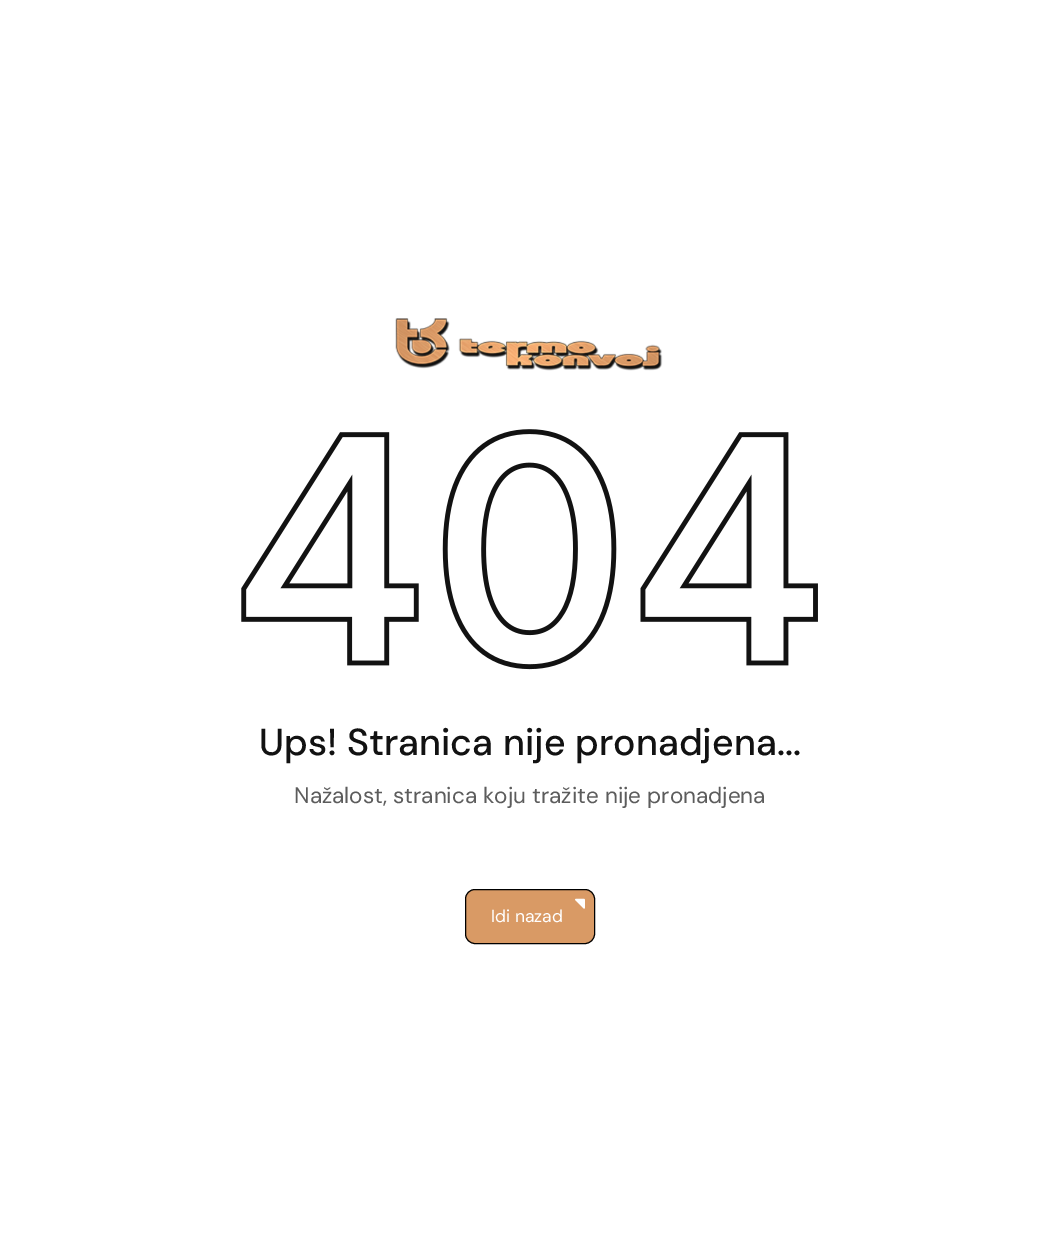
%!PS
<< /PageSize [1060 1250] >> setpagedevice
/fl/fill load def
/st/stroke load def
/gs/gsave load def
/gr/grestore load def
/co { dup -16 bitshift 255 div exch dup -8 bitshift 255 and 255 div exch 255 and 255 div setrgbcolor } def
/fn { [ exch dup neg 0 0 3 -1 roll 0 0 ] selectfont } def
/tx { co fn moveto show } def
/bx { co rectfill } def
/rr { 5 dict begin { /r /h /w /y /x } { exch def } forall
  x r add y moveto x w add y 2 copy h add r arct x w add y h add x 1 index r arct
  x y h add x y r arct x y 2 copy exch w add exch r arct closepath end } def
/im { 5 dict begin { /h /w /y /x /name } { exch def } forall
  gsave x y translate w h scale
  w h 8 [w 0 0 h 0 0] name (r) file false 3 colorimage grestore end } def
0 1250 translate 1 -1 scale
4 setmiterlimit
0 0 1060 1250 16#FFFFFF bx
(media/1.raw) 395 318 268 53 im
(media/2.raw) 241 429 577 241 im
16#D99A65 co
465.5 889.5 129 54 9.5 rr gs fl gr
16#000000 co
st
(media/3.raw) 575 898 10 11 im
(Ups! Stranica nije pronadjena...) 259 755 /DMSans-Medium 37.5 16#121212 tx
(Nažalost, stranica koju tražite nije pronadjena) 294 803 /DMSans-Regular 22.5 16#5C5C5C tx
(Idi nazad) 491 922 /DMSans-Regular 17.5 16#FFFFFF tx
showpage
